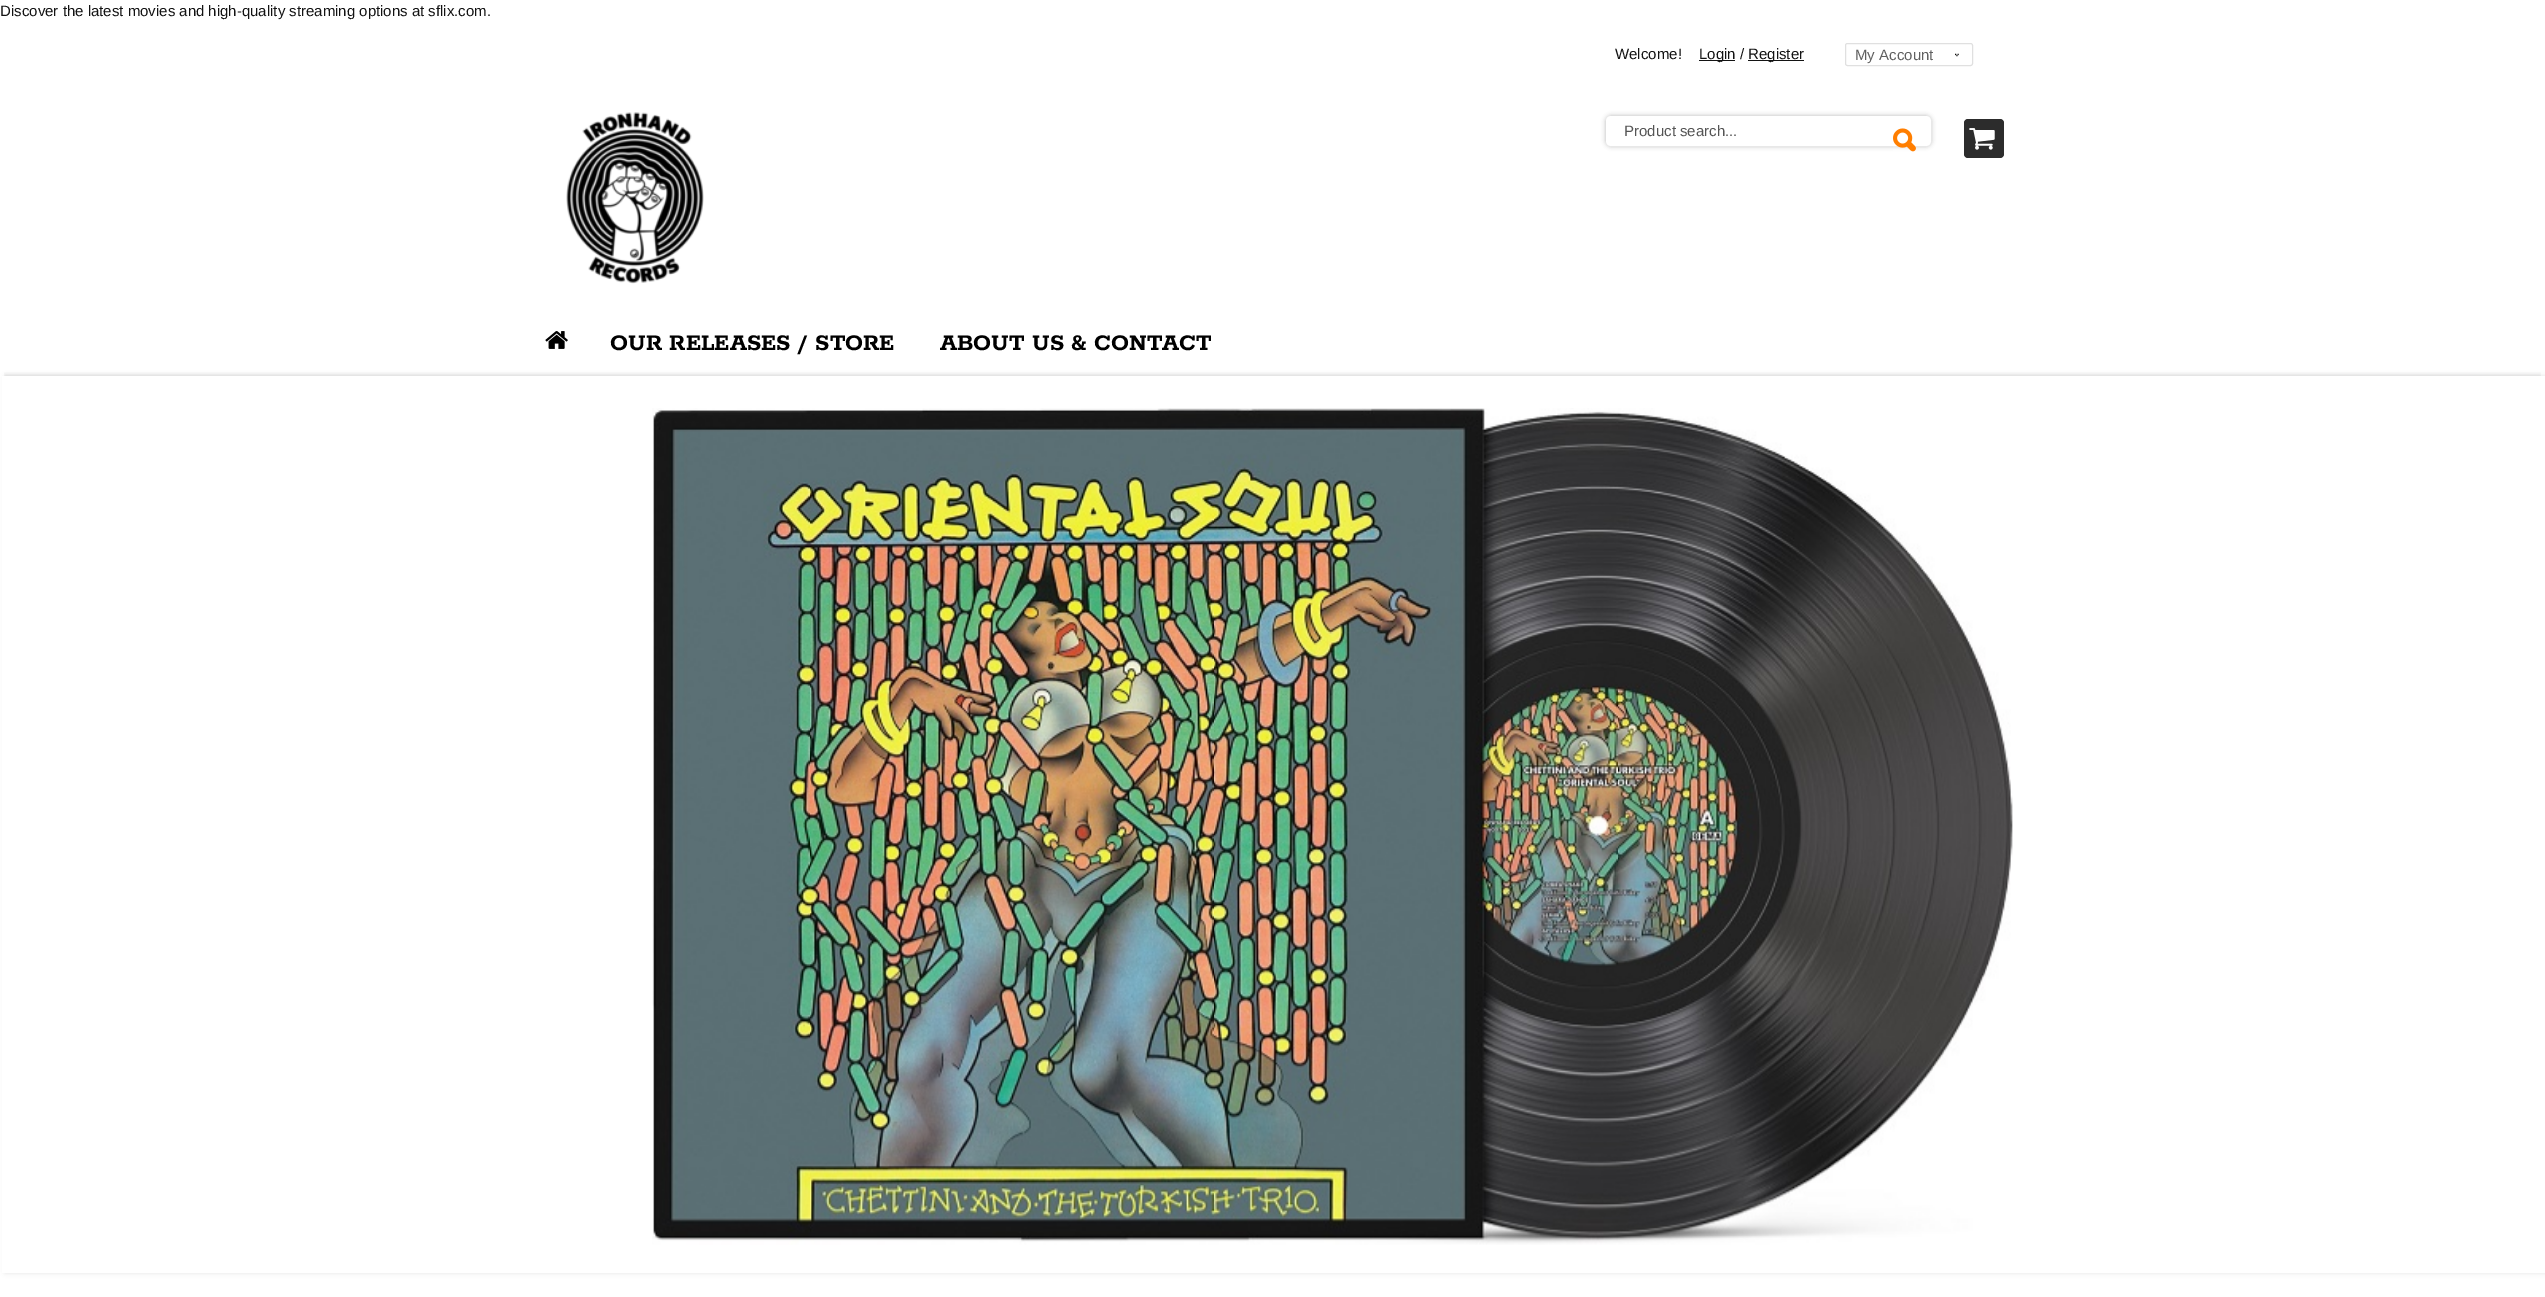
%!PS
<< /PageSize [2545 1297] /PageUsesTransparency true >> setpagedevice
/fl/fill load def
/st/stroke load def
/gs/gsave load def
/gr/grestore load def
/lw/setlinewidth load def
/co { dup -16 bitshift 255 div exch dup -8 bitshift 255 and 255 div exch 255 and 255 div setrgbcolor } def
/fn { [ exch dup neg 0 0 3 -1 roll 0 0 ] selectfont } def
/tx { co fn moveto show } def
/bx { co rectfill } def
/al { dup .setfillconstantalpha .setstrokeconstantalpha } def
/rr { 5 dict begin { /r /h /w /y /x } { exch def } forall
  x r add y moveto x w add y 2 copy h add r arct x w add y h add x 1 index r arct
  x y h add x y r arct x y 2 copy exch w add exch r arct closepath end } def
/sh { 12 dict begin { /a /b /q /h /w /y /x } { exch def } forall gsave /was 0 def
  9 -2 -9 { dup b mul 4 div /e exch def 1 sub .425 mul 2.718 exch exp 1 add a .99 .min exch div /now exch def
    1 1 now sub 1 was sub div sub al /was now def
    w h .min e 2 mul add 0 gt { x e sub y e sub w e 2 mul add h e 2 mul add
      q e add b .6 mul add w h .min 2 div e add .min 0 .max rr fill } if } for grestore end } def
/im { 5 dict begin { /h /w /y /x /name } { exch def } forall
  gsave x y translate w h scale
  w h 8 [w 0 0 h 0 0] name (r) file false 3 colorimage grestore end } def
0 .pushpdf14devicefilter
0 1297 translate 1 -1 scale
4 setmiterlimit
0 0 2545 1297 16#FFFFFF bx
1699 60 36 1 16#131313 bx
1748 60 56 1 16#131313 bx
(media/1.raw) 1955 53 4 4 im
16#E0E0E0 co
1845.5 43.5 127 22 2 rr st
(media/2.raw) 566 112 138 172 im
16#000000 co
1606 116 325 30 5 2.5 .27 sh
16#FFFFFF co
1607.5 117.5 322 27 3.5 rr gs fl gr
3 lw
st
(media/3.raw) 1893 128 23 24 im
16#2C2C2C co
1964 119 40 39 4 rr fl
(media/4.raw) 1969 128 26 22 im
(media/5.raw) 545 331 23 18 im
gs
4 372 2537 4 rectclip
16#000000 co
5 375 2535 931 0 3 .1 sh
gr
16#000000 co
5 376 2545 897 0 2.5 .1 sh
2 376 2543 897 16#FFFFFF bx
(media/6.raw) 652 408 1361 837 im
(Discover the latest movies and high-quality streaming options at sflix.com.) 0 16 /LiberationSans-Regular 15 16#131313 tx
(Welcome!) 1615 59 /LiberationSans-Regular 15 16#131313 tx
(Login /) 1699 59 /LiberationSans-Regular 15 16#131313 tx
(Register) 1748 59 /LiberationSans-Regular 15 16#131313 tx
(My Account) 1855 60 /LiberationSans-Regular 15 16#606060 tx
(Product search...) 1624 136 /LiberationSans-Regular 15 16#555555 tx
(OUR RELEASES / STORE) 610 350 /Rokkitt-Bold 25 16#000000 tx
(ABOUT US & CONTACT) 940 350 /Rokkitt-Bold 25 16#000000 tx
.poppdf14devicefilter showpage
